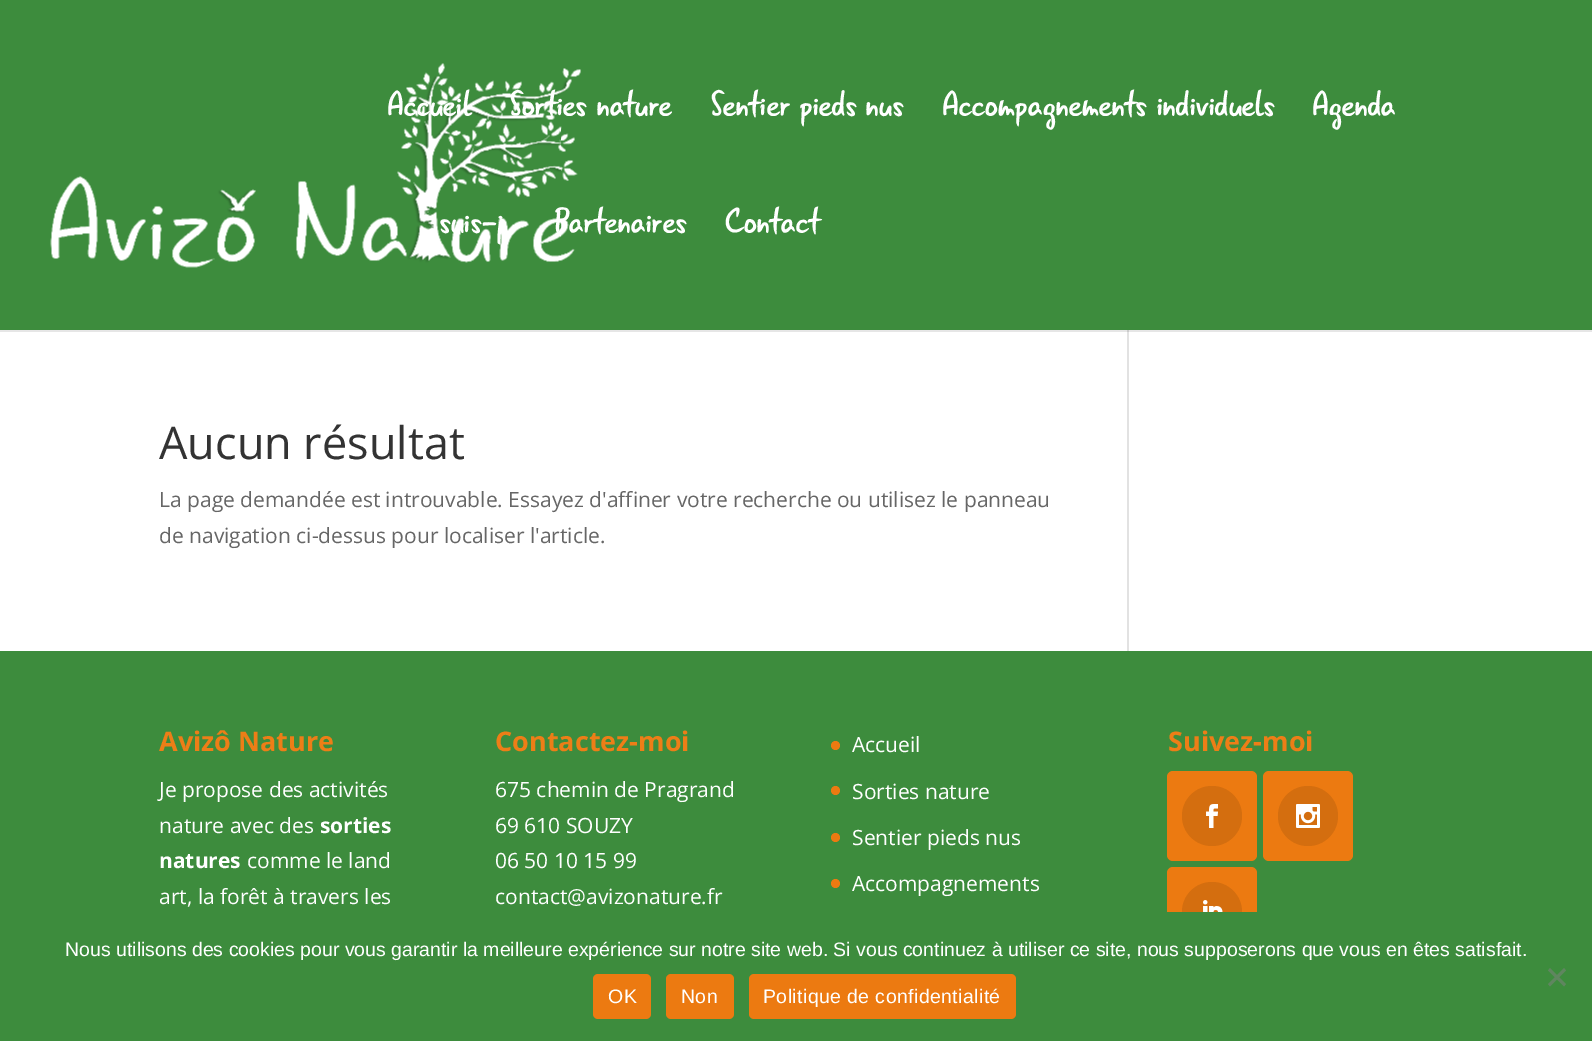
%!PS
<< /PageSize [1592 1041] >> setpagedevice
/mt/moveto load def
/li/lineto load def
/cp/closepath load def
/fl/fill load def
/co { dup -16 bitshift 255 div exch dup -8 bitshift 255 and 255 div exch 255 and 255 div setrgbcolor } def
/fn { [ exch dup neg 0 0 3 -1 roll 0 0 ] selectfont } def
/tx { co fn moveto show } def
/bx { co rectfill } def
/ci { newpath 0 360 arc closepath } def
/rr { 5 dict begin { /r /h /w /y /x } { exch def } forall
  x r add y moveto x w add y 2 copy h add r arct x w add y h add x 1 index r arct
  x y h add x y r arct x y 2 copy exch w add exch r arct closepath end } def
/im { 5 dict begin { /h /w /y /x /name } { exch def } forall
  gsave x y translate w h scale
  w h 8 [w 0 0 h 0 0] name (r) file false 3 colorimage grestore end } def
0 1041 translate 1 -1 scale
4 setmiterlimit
0 0 1592 1041 16#FFFFFF bx
0 330 1592 2 16#E6E6E6 bx
0 0 1592 330 16#3D8C3D bx
(media/1.raw) 50 63 531 205 im
1127 330 2 321 16#E2E2E2 bx
1127 330 2 2 16#CBCBCB bx
0 651 1592 261 16#3D8C3D bx
16#EC7A11 co
835.5 745.5 4.5 ci fl
835.5 790.5 4.5 ci fl
835.5 837.5 4.5 ci fl
835.5 883.5 4.5 ci fl
1167 771 90 90 6 rr fl
16#D46E0F co
1212 816 30 ci fl
(media/2.raw) 1206 804 12 24 im
16#EC7A11 co
1263 771 90 90 6 rr fl
16#D46E0F co
1308 816 30 ci fl
(media/3.raw) 1296 804 24 24 im
16#EC7A11 co
1167 867 90 90 6 rr fl
16#D46E0F co
1212 912 30 ci fl
(media/4.raw) 1203 900 20 12 im
0 912 1592 129 16#3D8C3D bx
16#5F865F co
1564 968 mt 1566 970.5 li 1550 986.5 li 1548 984 li cp fl
1548 970.5 mt 1550 968 li 1566 984 li 1564 986.5 li cp fl
16#EC7A11 co
593 974 58 45 5 rr fl
666 974 68 45 5 rr fl
749 974 267 45 5 rr fl
(Accueil) 387 116 /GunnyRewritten-Bold 36 16#FFFFFF tx
(Sorties nature) 509 116 /GunnyRewritten-Bold 36 16#FFFFFF tx
(Sentier pieds nus) 710 116 /GunnyRewritten-Bold 36 16#FFFFFF tx
(Accompagnements individuels) 942 116 /GunnyRewritten-Bold 36 16#FFFFFF tx
(Agenda) 1312 116 /GunnyRewritten-Bold 36 16#FFFFFF tx
(suis-j) 439 233 /GunnyRewritten-Bold 36 16#FFFFFF tx
(Partenaires) 554 233 /GunnyRewritten-Bold 36 16#FFFFFF tx
(Contact) 724 233 /GunnyRewritten-Bold 36 16#FFFFFF tx
(Aucun résultat) 159 459 /OpenSans-Regular 45 16#333333 tx
(La page demandée est introuvable. Essayez d'affiner votre recherche ou utilisez le panneau) 159 507 /OpenSans-Regular 21 16#666666 tx
(de navigation ci-dessus pour localiser l'article.) 159 543 /OpenSans-Regular 21 16#666666 tx
(Avizô Nature) 159 751 /OpenSans-Bold 27 16#ED7E17 tx
(Je propose des activités) 159 797 /OpenSans-Regular 21 16#FFFFFF tx
(nature avec des) 159 833 /OpenSans-Regular 21 16#FFFFFF tx
(sorties) 320 833 /OpenSans-Bold 21 16#FFFFFF tx
(natures) 159 868 /OpenSans-Bold 21 16#FFFFFF tx
(comme le land) 247 868 /OpenSans-Regular 21 16#FFFFFF tx
(art, la forêt à travers les) 159 904 /OpenSans-Regular 21 16#FFFFFF tx
(Contactez-moi) 495 751 /OpenSans-Bold 27 16#ED7E17 tx
(675 chemin de Pragrand) 495 797 /OpenSans-Regular 21 16#FFFFFF tx
(69 610 SOUZY) 495 833 /OpenSans-Regular 21 16#FFFFFF tx
(06 50 10 15 99) 495 868 /OpenSans-Regular 21 16#FFFFFF tx
(contact@avizonature.fr) 495 904 /OpenSans-Regular 21 16#FFFFFF tx
(Accueil) 852 752 /OpenSans-Regular 21 16#FFFFFF tx
(Sorties nature) 852 799 /OpenSans-Regular 21 16#FFFFFF tx
(Sentier pieds nus) 852 845 /OpenSans-Regular 21 16#FFFFFF tx
(Accompagnements) 852 891 /OpenSans-Regular 21 16#FFFFFF tx
(Suivez-moi) 1168 751 /OpenSans-Bold 27 16#ED7E17 tx
(Nous utilisons des cookies pour vous garantir la meilleure expérience sur notre site web. Si vous continuez à utiliser ce site, nous supposerons que vous en êtes satisfait.) 65 956 /LiberationSans-Regular 19.5 16#FFFFFF tx
608 1003 mt .4 0 (OK) ashow
681 1003 mt .4 0 (Non) ashow
763 1003 mt .4 0 (Politique de confidentialité) ashow
showpage
